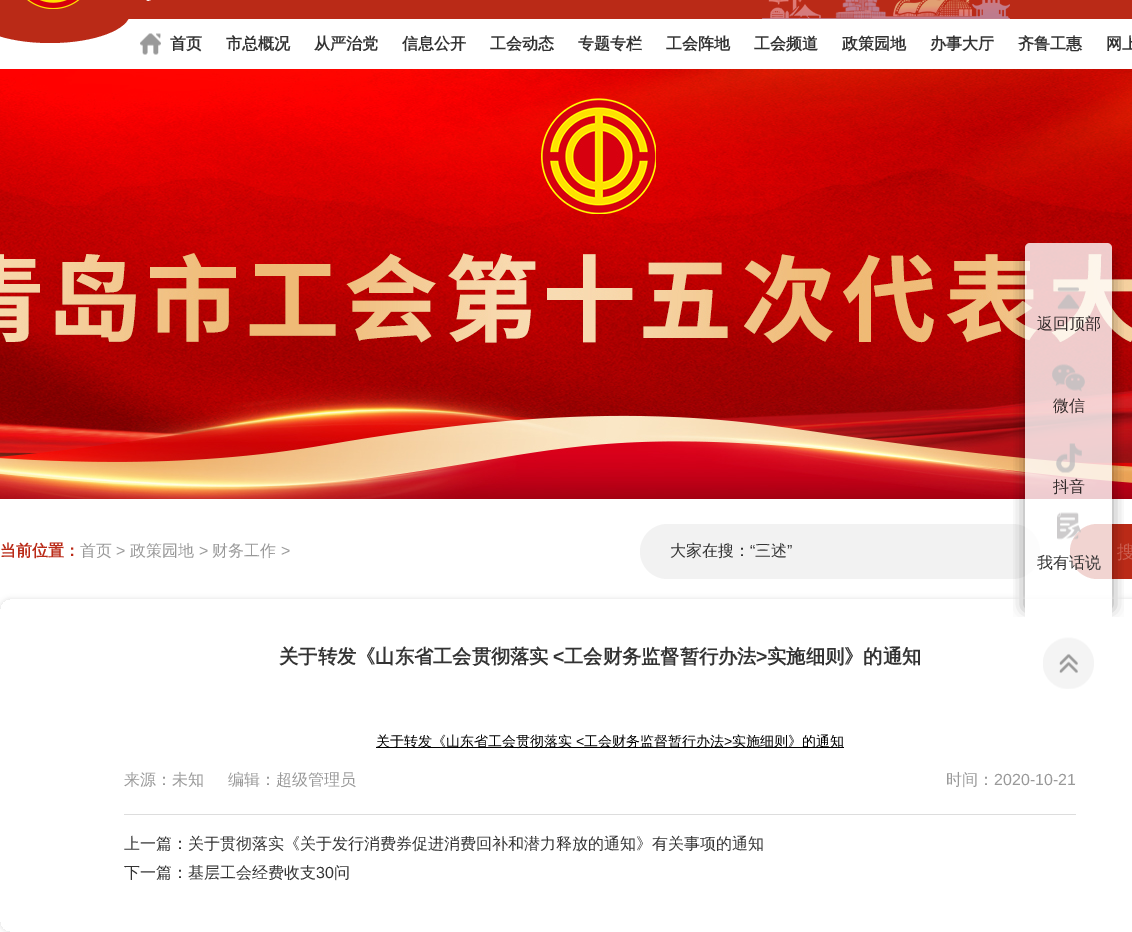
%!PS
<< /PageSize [1132 932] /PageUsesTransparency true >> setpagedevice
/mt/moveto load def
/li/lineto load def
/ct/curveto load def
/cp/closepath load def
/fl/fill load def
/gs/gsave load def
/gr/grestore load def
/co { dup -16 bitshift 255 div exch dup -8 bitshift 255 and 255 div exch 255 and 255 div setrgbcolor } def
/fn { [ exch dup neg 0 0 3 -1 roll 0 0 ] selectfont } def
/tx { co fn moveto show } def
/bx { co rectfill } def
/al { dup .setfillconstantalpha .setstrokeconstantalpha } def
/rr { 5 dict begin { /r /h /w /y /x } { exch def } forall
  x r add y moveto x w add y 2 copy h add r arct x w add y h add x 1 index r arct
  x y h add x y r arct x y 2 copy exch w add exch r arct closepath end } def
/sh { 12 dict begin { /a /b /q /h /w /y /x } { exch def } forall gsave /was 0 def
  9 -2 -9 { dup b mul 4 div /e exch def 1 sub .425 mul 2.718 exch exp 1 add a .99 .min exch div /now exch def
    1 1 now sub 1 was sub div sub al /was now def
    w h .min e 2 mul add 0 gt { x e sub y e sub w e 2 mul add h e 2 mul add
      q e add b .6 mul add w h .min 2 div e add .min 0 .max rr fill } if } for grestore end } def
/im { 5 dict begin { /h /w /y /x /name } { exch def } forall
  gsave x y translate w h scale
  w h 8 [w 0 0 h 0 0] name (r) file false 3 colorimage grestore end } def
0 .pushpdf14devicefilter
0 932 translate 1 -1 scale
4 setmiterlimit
0 0 1132 932 16#FFFFFF bx
122 0 1010 19 16#BA2A17 bx
(media/1.raw) 762 0 248 19 im
50 -17 mt 94 -17 130 -3.5 130 13 ct 130 29.5 94 43 50 43 ct 6 43 -30 29.5 -30 13 ct -30 -3.5 6 -17 50 -17 ct cp fl
(media/2.raw) 27 0 124 9 im
(media/3.raw) 140 33 21 22 im
(media/4.raw) 0 69 1132 430 im
16#F2F2F2 co
640 524 400 55 27.5 rr fl
16#BA2A17 co
1070 524 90 55 27.5 rr fl
gs
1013 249 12 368 rectclip
16#000000 co
1025 258 57 350 0 7.5 .4 sh
gr
gs
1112 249 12 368 rectclip
16#000000 co
1055 258 57 350 0 7.5 .4 sh
gr
gs
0 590 mt 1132 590 li 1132 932 li 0 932 li cp 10 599 mt 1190 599 li 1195.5 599 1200 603.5 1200 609 ct 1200 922 li 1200 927.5 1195.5 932 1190 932 ct 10 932 li 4.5 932 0 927.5 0 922 ct 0 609 li 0 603.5 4.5 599 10 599 ct cp eoclip newpath
16#E0E0E0 co
0 599 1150 333 10 2.5 1 sh
gr
0.8 al
16#FFFFFF co
1025 243 87 380 5 rr fl
1 al
(media/5.raw) 1057 287 22 23 im
(media/6.raw) 1052 364 33 28 im
(media/7.raw) 1056 443 26 30 im
(media/8.raw) 1057 512 24 28 im
(media/9.raw) 1043 637 51 52 im
124 814 952 1 16#DDDDDD bx
376 747 468 1 16#000000 bx
(首页) 170 49 /WenQuanYiZenHei-Bold 16 16#333333 tx
(市总概况) 226 49 /WenQuanYiZenHei-Bold 16 16#333333 tx
(从严治党) 314 49 /WenQuanYiZenHei-Bold 16 16#333333 tx
(信息公开) 402 49 /WenQuanYiZenHei-Bold 16 16#333333 tx
(工会动态) 490 49 /WenQuanYiZenHei-Bold 16 16#333333 tx
(专题专栏) 578 49 /WenQuanYiZenHei-Bold 16 16#333333 tx
(工会阵地) 666 49 /WenQuanYiZenHei-Bold 16 16#333333 tx
(工会频道) 754 49 /WenQuanYiZenHei-Bold 16 16#333333 tx
(政策园地) 842 49 /WenQuanYiZenHei-Bold 16 16#333333 tx
(办事大厅) 930 49 /WenQuanYiZenHei-Bold 16 16#333333 tx
(齐鲁工惠) 1018 49 /WenQuanYiZenHei-Bold 16 16#333333 tx
(网上) 1106 49 /WenQuanYiZenHei-Bold 16 16#333333 tx
(返回顶部) 1037 329 /WenQuanYiZenHei-Medium 16 16#312A2A tx
(微信) 1053 411 /WenQuanYiZenHei-Medium 16 16#312A2A tx
(抖音) 1053 492 /WenQuanYiZenHei-Medium 16 16#312A2A tx
(我有话说) 1037 568 /WenQuanYiZenHei-Medium 16 16#333333 tx
(当前位置：) 0 556 /WenQuanYiZenHei-Bold 16 16#BA2A17 tx
(首页) 80 556 /WenQuanYiZenHei-Medium 16 16#999999 tx
(>) 116 556 /LiberationSans-Regular 16 16#999999 tx
(政策园地) 130 556 /WenQuanYiZenHei-Medium 16 16#999999 tx
(>) 199 556 /LiberationSans-Regular 16 16#999999 tx
(财务工作) 212 556 /WenQuanYiZenHei-Medium 16 16#999999 tx
(>) 281 556 /LiberationSans-Regular 16 16#999999 tx
(大家在搜：) 670 556 /WenQuanYiZenHei-Medium 16 16#333333 tx
(“) 750 556 /LiberationSans-Regular 16 16#333333 tx
(三述) 755 556 /WenQuanYiZenHei-Medium 16 16#333333 tx
(”) 787 556 /LiberationSans-Regular 16 16#333333 tx
(搜) 1117 558 /WenQuanYiZenHei-Medium 18 16#CB5E50 tx
(关于转发《山东省工会贯彻落实) 279 663 /WenQuanYiZenHei-Bold 19.25 16#333333 tx
(<) 553 663 /LiberationSans-Bold 19.25 16#333333 tx
(工会财务监督暂行办法) 564 663 /WenQuanYiZenHei-Bold 19.25 16#333333 tx
(>) 756 663 /LiberationSans-Bold 19.25 16#333333 tx
(实施细则》的通知) 767 663 /WenQuanYiZenHei-Bold 19.25 16#333333 tx
(关于转发《山东省工会贯彻落实) 376 746 /WenQuanYiZenHei-Medium 14 16#000000 tx
(<) 576 746 /LiberationSans-Regular 14 16#000000 tx
(工会财务监督暂行办法) 584 746 /WenQuanYiZenHei-Medium 14 16#000000 tx
(>) 724 746 /LiberationSans-Regular 14 16#000000 tx
(实施细则》的通知) 732 746 /WenQuanYiZenHei-Medium 14 16#000000 tx
(来源：未知) 124 785 /WenQuanYiZenHei-Medium 16 16#999999 tx
(编辑：超级管理员) 228 785 /WenQuanYiZenHei-Medium 16 16#999999 tx
(时间：) 946 785 /WenQuanYiZenHei-Medium 16 16#999999 tx
(2020-10-21) 994 785 /LiberationSans-Regular 16 16#999999 tx
(上一篇：关于贯彻落实《关于发行消费券促进消费回补和潜力释放的通知》有关事项的通知) 124 849 /WenQuanYiZenHei-Medium 16 16#333333 tx
(下一篇：基层工会经费收支) 124 878 /WenQuanYiZenHei-Medium 16 16#333333 tx
(30) 316 878 /LiberationSans-Regular 16 16#333333 tx
(问) 334 878 /WenQuanYiZenHei-Medium 16 16#333333 tx
.poppdf14devicefilter showpage
